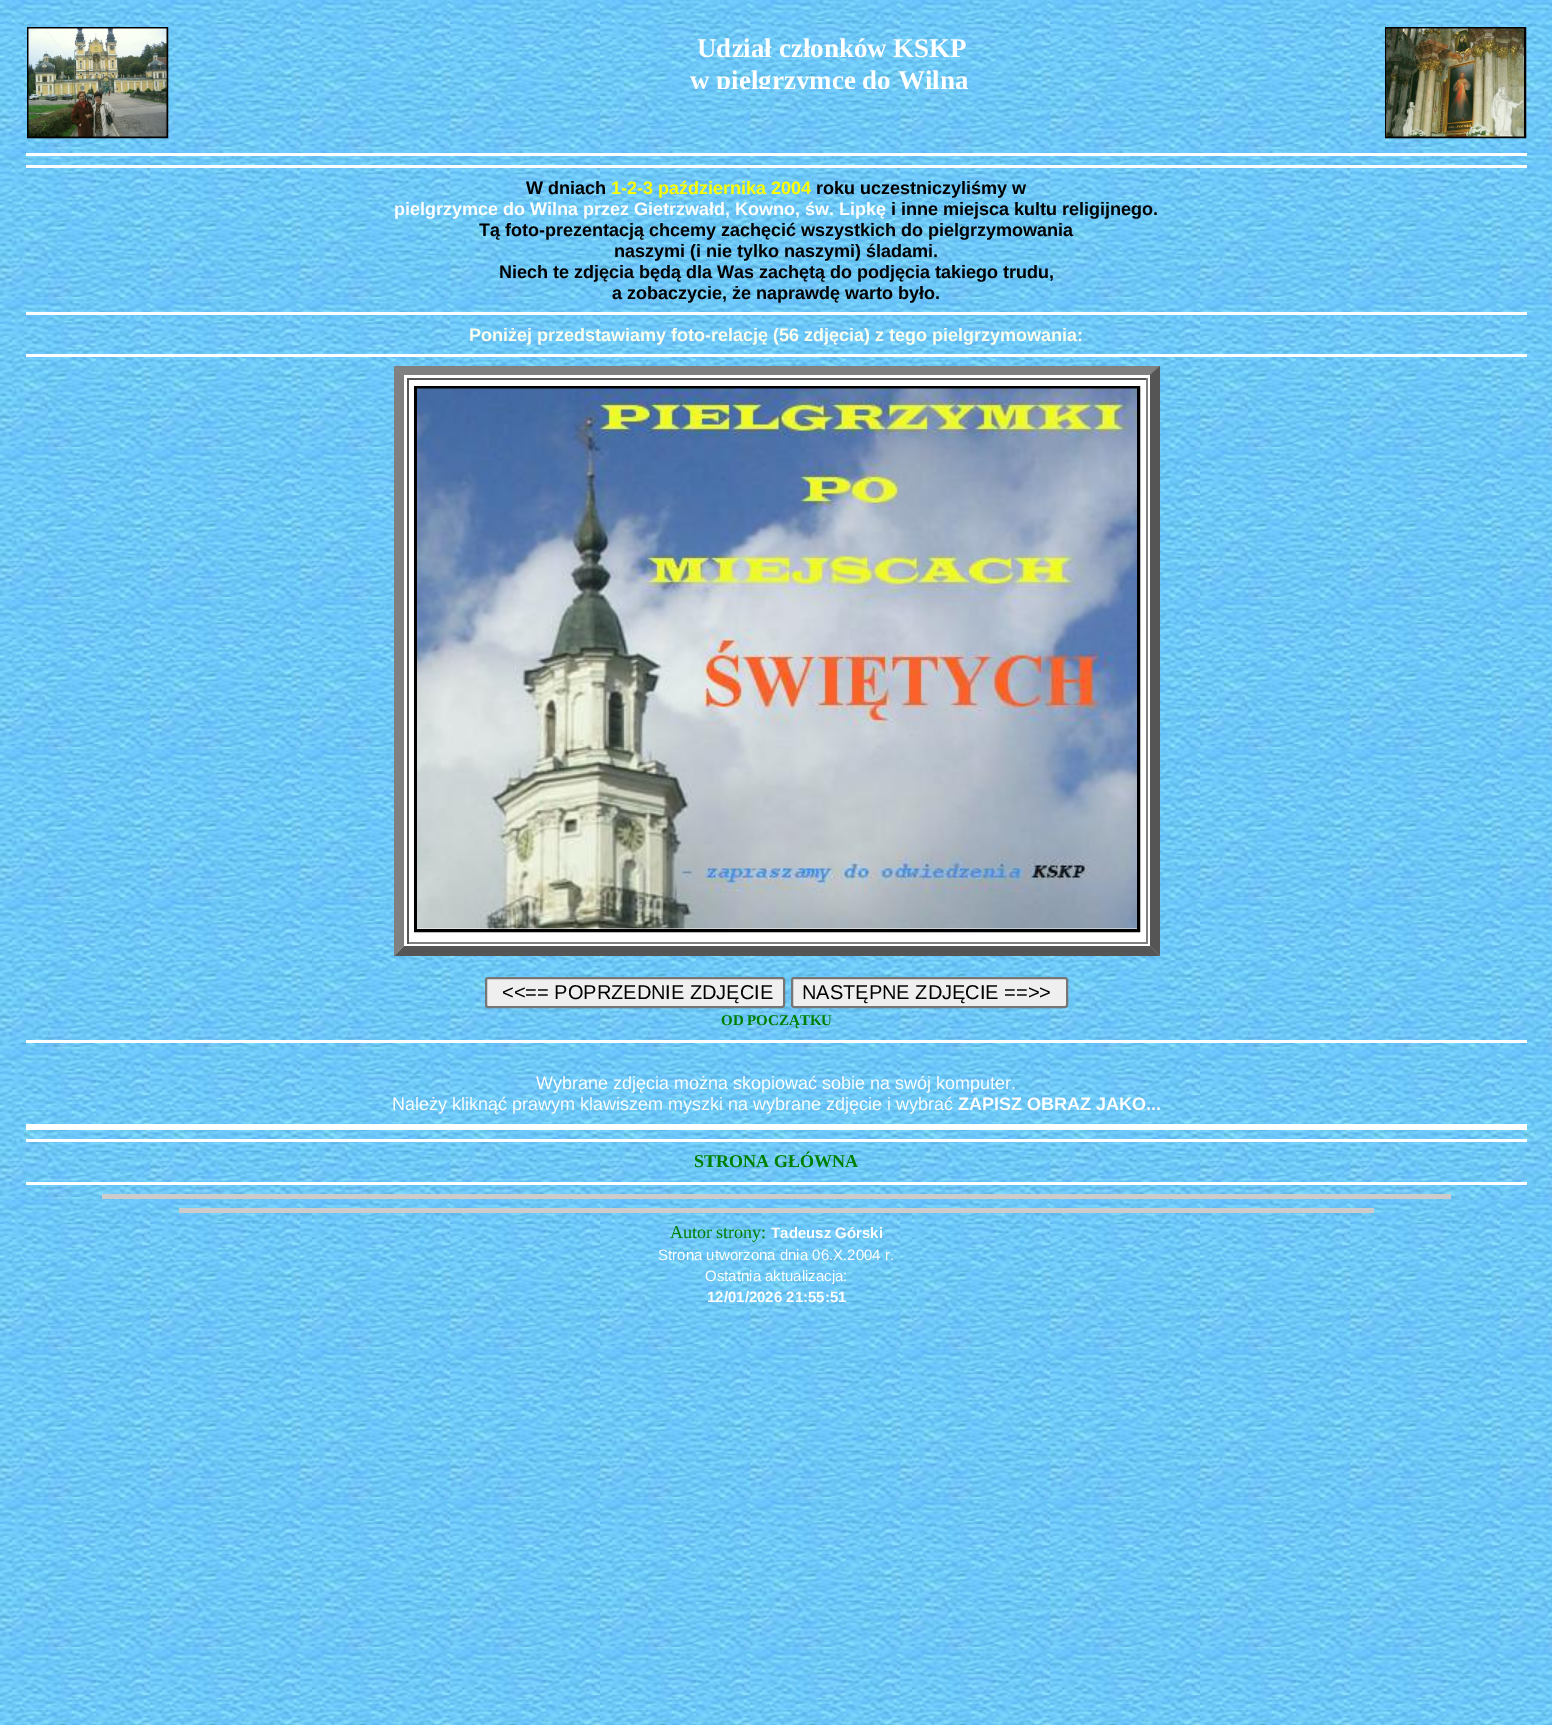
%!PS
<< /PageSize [1552 1725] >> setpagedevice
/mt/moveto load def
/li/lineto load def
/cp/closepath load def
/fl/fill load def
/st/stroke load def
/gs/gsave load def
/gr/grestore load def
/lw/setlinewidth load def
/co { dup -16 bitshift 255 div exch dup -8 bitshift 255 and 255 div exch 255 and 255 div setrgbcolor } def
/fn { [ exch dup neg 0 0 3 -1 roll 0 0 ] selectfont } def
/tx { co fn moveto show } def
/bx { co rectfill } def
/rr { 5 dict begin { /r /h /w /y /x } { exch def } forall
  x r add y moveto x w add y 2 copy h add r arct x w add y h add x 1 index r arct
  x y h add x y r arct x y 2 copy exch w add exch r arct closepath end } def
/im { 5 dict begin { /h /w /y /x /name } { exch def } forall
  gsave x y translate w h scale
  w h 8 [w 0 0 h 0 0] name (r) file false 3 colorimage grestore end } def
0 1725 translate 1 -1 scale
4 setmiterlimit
0 0 1552 1725 16#FFFFFF bx
(media/1.raw) 0 0 1552 1725 im
16#000000 co
2 lw
28 28 139 109 rectstroke
(media/2.raw) 28 28 139 109 im
1386 28 139 109 rectstroke
(media/3.raw) 1386 28 138 109 im
26 153 1501 3 16#FFFFFF bx
26 165 1501 3 16#FFFFFF bx
26 312 1501 3 16#FFFFFF bx
26 354 1501 3 16#FFFFFF bx
395 366 765 590 16#FFFFFF bx
16#808080 co
394 366 mt 1160 366 li 1150 375 li 404 375 li cp fl
16#555555 co
1160 366 mt 1160 956 li 1150 946 li 1150 375 li cp fl
1160 956 mt 394 956 li 404 946 li 1150 946 li cp fl
16#808080 co
394 956 mt 394 366 li 404 375 li 404 946 li cp fl
407 378 741 2 16#555555 bx
1146 378 2 566 16#808080 bx
407 942 741 2 16#808080 bx
407 378 2 566 16#555555 bx
16#000000 co
3 lw
415.5 387.5 723 543 rectstroke
(media/4.raw) 417 388 720 541 im
16#EFEFEF co
486 978 298 29 2 rr gs fl gr
16#767676 co
2 lw
st
16#EFEFEF co
792 978 275 29 2 rr gs fl gr
16#767676 co
st
26 1040 1501 3 16#FFFFFF bx
26 1124 1501 6 16#FFFFFF bx
26 1139 1501 3 16#FFFFFF bx
26 1182 1501 3 16#FFFFFF bx
102 1194 1349 5 16#CCCCCC bx
179 1208 1195 5 16#CCCCCC bx
(Udział członków KSKP) 697 57 /LiberationSerif-Bold 27 16#FFFFFF tx
gs
492 33 570 56 rectclip
(w pielgrzymce do Wilna) 690 89 /LiberationSerif-Bold 27 16#FFFFFF tx
gr
(W dniach) 526 194 /LiberationSans-Bold 18 16#000000 tx
(1-2-3 października 2004) 611 194 /LiberationSans-Bold 18 16#FFFF00 tx
(roku uczestniczyliśmy w) 816 194 /LiberationSans-Bold 18 16#000000 tx
(pielgrzymce do Wilna przez Gietrzwałd, Kowno, św. Lipkę) 394 215 /LiberationSans-Bold 18 16#FFFFFF tx
(i inne miejsca kultu religijnego.) 891 215 /LiberationSans-Bold 18 16#000000 tx
(Tą foto-prezentacją chcemy zachęcić wszystkich do pielgrzymowania) 479 236 /LiberationSans-Bold 18 16#000000 tx
(naszymi \(i nie tylko naszymi\) śladami.) 614 257 /LiberationSans-Bold 18 16#000000 tx
(Niech te zdjęcia będą dla Was zachętą do podjęcia takiego trudu,) 499 278 /LiberationSans-Bold 18 16#000000 tx
(a zobaczycie, że naprawdę warto było.) 612 299 /LiberationSans-Bold 18 16#000000 tx
(Poniżej przedstawiamy foto-relację \(56 zdjęcia\) z tego pielgrzymowania:) 469 341 /LiberationSans-Bold 18 16#FFFFF0 tx
(<<== POPRZEDNIE ZDJĘCIE) 502 999 /LiberationSans-Regular 20 16#000000 tx
(NASTĘPNE ZDJĘCIE ==>>) 802 999 /LiberationSans-Regular 20 16#000000 tx
(OD POCZĄTKU) 721 1025 /LiberationSerif-Bold 15 16#008000 tx
(Wybrane zdjęcia można skopiować sobie na swój komputer.) 536 1089 /LiberationSans-Regular 18 16#FFFFFF tx
(Należy kliknąć prawym klawiszem myszki na wybrane zdjęcie i wybrać) 392 1110 /LiberationSans-Regular 18 16#FFFFFF tx
(ZAPISZ OBRAZ JAKO...) 958 1110 /LiberationSans-Bold 18 16#FFFFFF tx
(STRONA GŁÓWNA) 694 1167 /LiberationSerif-Bold 18 16#008000 tx
(Autor strony:) 670 1238 /LiberationSerif-Regular 18 16#008000 tx
(Tadeusz Górski) 771 1238 /LiberationSans-Bold 15 16#FFFFFF tx
(Strona utworzona dnia 06.X.2004 r.) 658 1260 /LiberationSans-Regular 15 16#FFFFFF tx
(Ostatnia aktualizacja:) 705 1281 /LiberationSans-Regular 15 16#FFFFFF tx
(12/01/2026 21:55:51) 707 1302 /LiberationSans-Bold 15 16#FFFFFF tx
showpage
